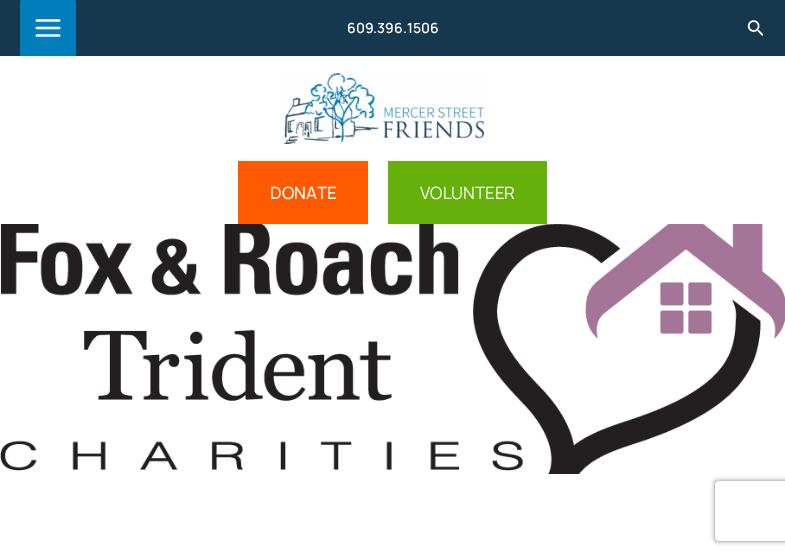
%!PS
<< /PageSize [785 555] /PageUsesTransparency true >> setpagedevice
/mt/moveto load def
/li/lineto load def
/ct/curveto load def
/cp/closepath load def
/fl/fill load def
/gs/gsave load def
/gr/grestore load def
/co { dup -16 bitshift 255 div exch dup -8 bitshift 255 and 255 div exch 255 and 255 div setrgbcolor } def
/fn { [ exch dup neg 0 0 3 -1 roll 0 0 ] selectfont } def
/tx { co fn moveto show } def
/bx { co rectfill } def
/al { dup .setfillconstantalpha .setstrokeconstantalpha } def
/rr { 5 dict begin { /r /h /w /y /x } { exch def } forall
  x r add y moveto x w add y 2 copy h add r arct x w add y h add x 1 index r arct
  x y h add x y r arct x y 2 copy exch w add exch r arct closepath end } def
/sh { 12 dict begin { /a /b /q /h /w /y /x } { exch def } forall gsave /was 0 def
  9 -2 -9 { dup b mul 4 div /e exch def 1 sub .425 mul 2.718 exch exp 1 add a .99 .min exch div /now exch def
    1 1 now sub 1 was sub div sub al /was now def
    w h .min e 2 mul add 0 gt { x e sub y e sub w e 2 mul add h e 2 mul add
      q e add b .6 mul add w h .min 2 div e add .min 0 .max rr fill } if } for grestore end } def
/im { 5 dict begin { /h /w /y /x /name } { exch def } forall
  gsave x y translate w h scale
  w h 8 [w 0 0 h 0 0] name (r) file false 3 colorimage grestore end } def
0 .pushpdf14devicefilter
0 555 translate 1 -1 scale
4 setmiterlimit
0 0 785 555 16#FFFFFF bx
0 0 785 56 16#16384E bx
16#007EBC co
20 0 56 56 2 rr fl
(media/1.raw) 35 19 26 18 im
(media/2.raw) 747 20 16 16 im
(media/3.raw) 284 73 200 71 im
238 161 130 63 16#FF5A00 bx
388 161 159 63 16#66B00B bx
(media/4.raw) 0 224 785 250 im
gs
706 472 mt 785 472 li 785 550 li 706 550 li cp 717 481 mt 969 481 li 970 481 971 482 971 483 ct 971 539 li 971 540 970 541 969 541 ct 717 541 li 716 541 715 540 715 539 ct 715 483 li 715 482 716 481 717 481 ct cp eoclip newpath
16#808080 co
715 481 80 60 2 2.5 1 sh
gr
(609.396.1506) 347 33 /Manrope-SemiBold 14 16#FFFFFF tx
(DONATE) 270 199 /Manrope-Medium 17 16#FFFFFF tx
(VOLUNTEER) 420 199 /Manrope-Regular 17 16#FFFFFF tx
.poppdf14devicefilter showpage
